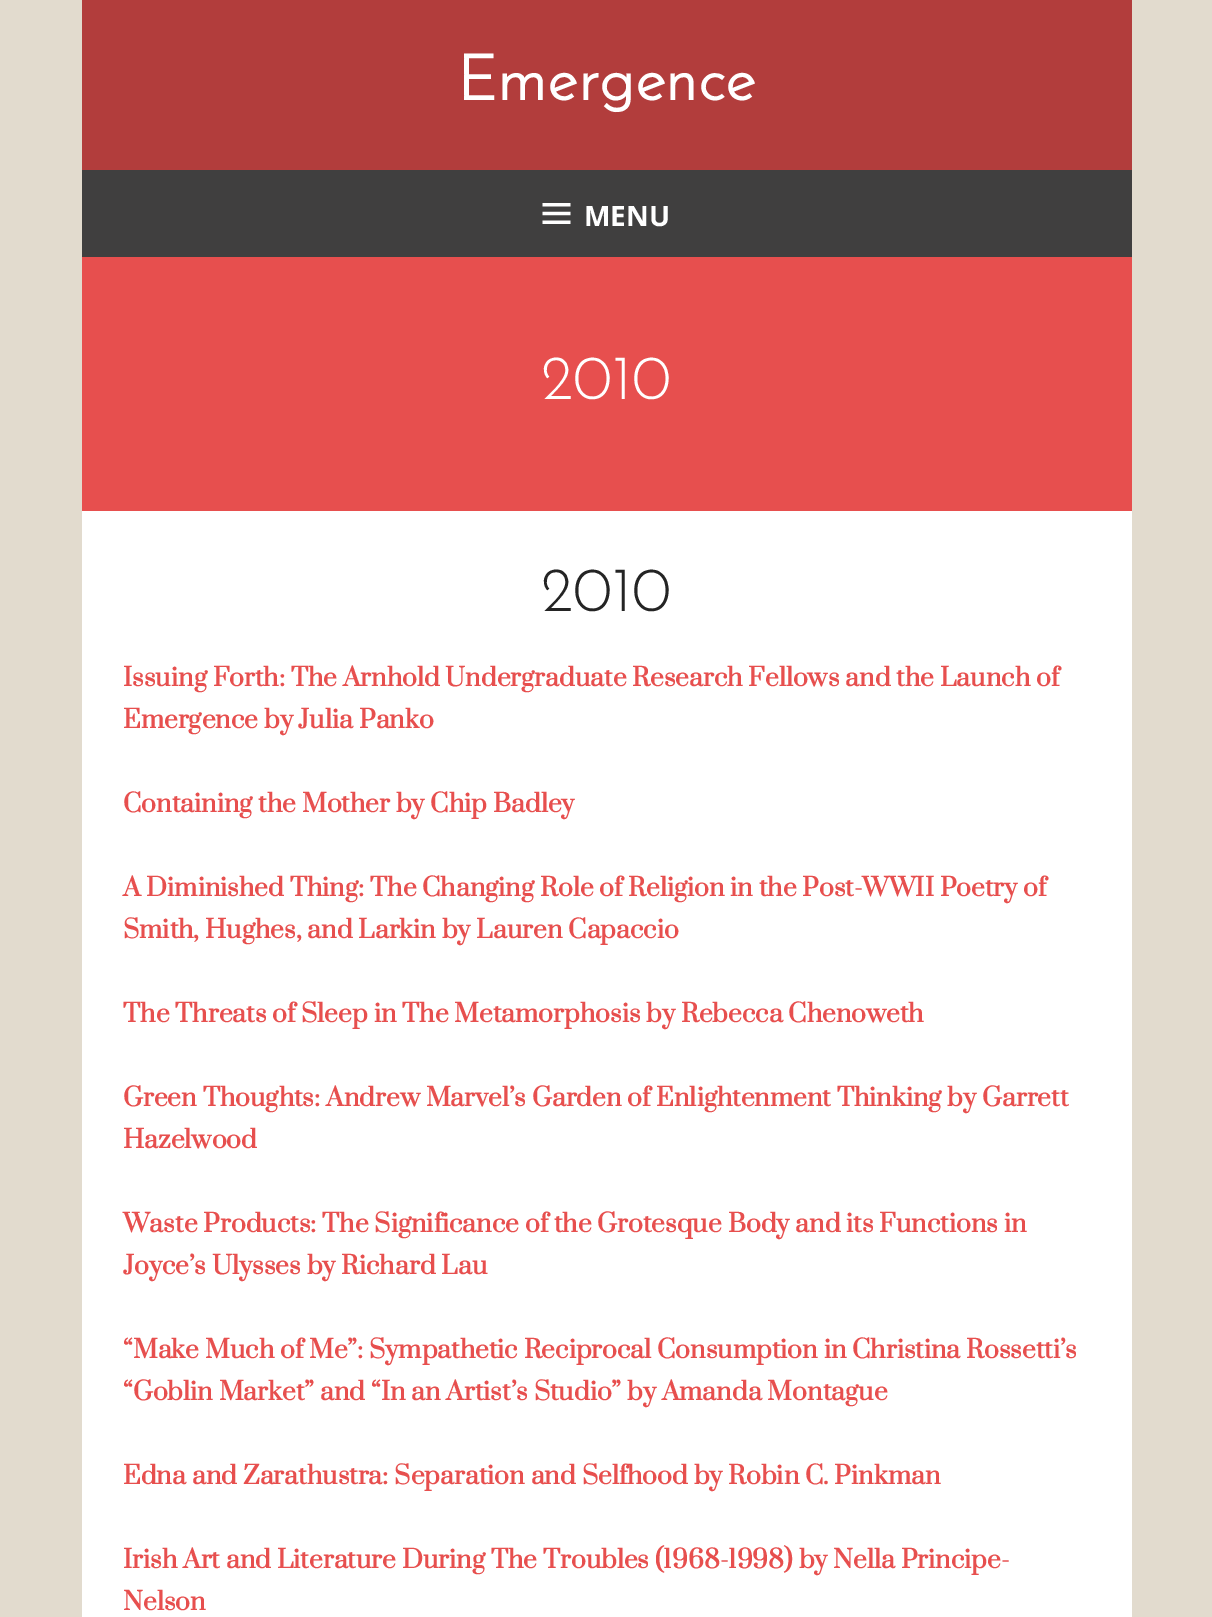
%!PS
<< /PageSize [1212 1617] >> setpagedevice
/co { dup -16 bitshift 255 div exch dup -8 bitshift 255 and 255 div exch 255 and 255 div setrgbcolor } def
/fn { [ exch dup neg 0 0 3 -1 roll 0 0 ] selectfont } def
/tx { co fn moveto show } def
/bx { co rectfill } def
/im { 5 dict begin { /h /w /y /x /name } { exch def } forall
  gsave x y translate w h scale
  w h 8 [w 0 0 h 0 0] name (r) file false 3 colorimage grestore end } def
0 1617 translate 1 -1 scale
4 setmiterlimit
0 0 1212 1617 16#E2DBCE bx
82 511 1050 1106 16#FFFFFF bx
82 0 1050 170 16#B23D3C bx
82 170 1050 87 16#403F3F bx
(media/1.raw) 542 203 29 21 im
82 257 1050 254 16#E74F4E bx
(Emergence) 457 100 /JosefinSans-Bold 63 16#FFFFFF tx
(MENU) 584 226 /NotoSans-Bold 28 16#FFFFFF tx
(2010) 541 399 /JosefinSans-Light 63 16#FFFFFF tx
(2010) 541 611 /JosefinSans-Light 63 16#242424 tx
(Issuing Forth: The Arnhold Undergraduate Research Fellows and the Launch of) 123 686 /Prata-Bold 24.5 16#E74F4E tx
(Emergence by Julia Panko) 123 728 /Prata-Bold 24.5 16#E74F4E tx
(Containing the Mother by Chip Badley) 123 812 /Prata-Bold 24.5 16#E74F4E tx
(A Diminished Thing: The Changing Role of Religion in the Post-WWII Poetry of) 123 896 /Prata-Bold 24.5 16#E74F4E tx
(Smith, Hughes, and Larkin by Lauren Capaccio) 123 938 /Prata-Bold 24.5 16#E74F4E tx
(The Threats of Sleep in The Metamorphosis by Rebecca Chenoweth) 123 1022 /Prata-Bold 24.5 16#E74F4E tx
(Green Thoughts: Andrew Marvel’s Garden of Enlightenment Thinking by Garrett) 123 1106 /Prata-Bold 24.5 16#E74F4E tx
(Hazelwood) 123 1148 /Prata-Bold 24.5 16#E74F4E tx
(Waste Products: The Significance of the Grotesque Body and its Functions in) 123 1232 /Prata-Bold 24.5 16#E74F4E tx
(Joyce’s Ulysses by Richard Lau) 123 1274 /Prata-Bold 24.5 16#E74F4E tx
(“Make Much of Me”: Sympathetic Reciprocal Consumption in Christina Rossetti’s) 123 1358 /Prata-Bold 24.5 16#E74F4E tx
(“Goblin Market” and “In an Artist’s Studio” by Amanda Montague) 123 1400 /Prata-Bold 24.5 16#E74F4E tx
(Edna and Zarathustra: Separation and Selfhood by Robin C. Pinkman) 123 1484 /Prata-Bold 24.5 16#E74F4E tx
(Irish Art and Literature During The Troubles \(1968-1998\) by Nella Principe-) 123 1568 /Prata-Bold 24.5 16#E74F4E tx
(Nelson) 123 1610 /Prata-Bold 24.5 16#E74F4E tx
showpage
